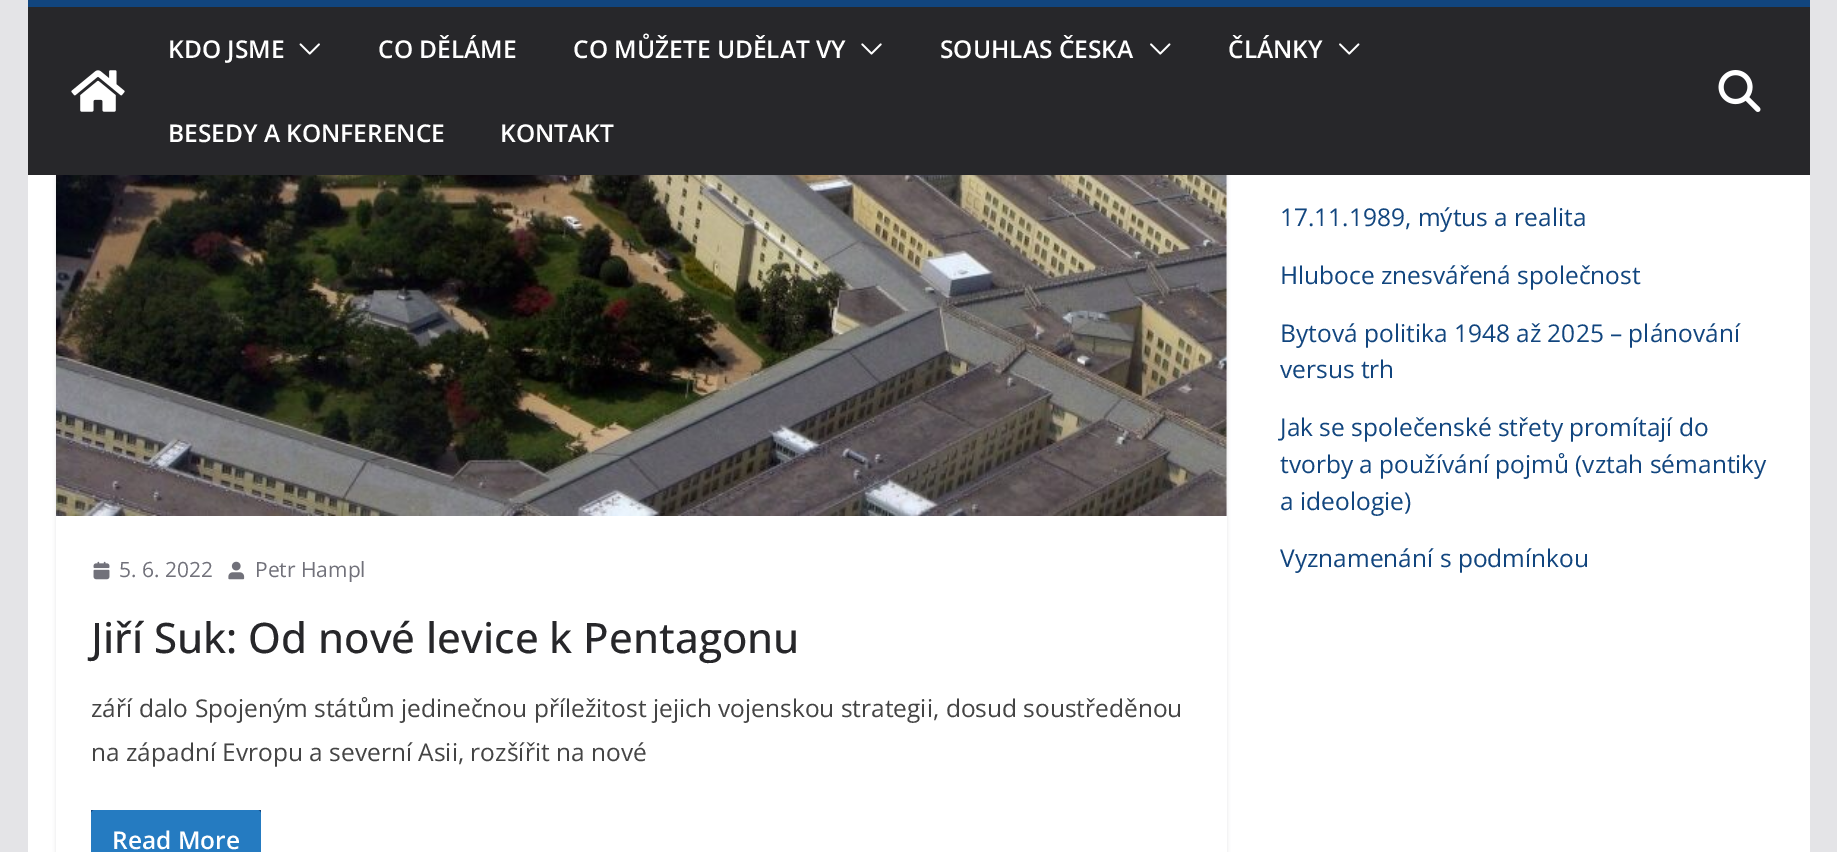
%!PS
<< /PageSize [1837 852] /PageUsesTransparency true >> setpagedevice
/mt/moveto load def
/li/lineto load def
/ct/curveto load def
/cp/closepath load def
/fl/fill load def
/gs/gsave load def
/gr/grestore load def
/co { dup -16 bitshift 255 div exch dup -8 bitshift 255 and 255 div exch 255 and 255 div setrgbcolor } def
/fn { [ exch dup neg 0 0 3 -1 roll 0 0 ] selectfont } def
/tx { co fn moveto show } def
/bx { co rectfill } def
/al { dup .setfillconstantalpha .setstrokeconstantalpha } def
/rr { 5 dict begin { /r /h /w /y /x } { exch def } forall
  x r add y moveto x w add y 2 copy h add r arct x w add y h add x 1 index r arct
  x y h add x y r arct x y 2 copy exch w add exch r arct closepath end } def
/sh { 12 dict begin { /a /b /q /h /w /y /x } { exch def } forall gsave /was 0 def
  9 -2 -9 { dup b mul 4 div /e exch def 1 sub .425 mul 2.718 exch exp 1 add a .99 .min exch div /now exch def
    1 1 now sub 1 was sub div sub al /was now def
    w h .min e 2 mul add 0 gt { x e sub y e sub w e 2 mul add h e 2 mul add
      q e add b .6 mul add w h .min 2 div e add .min 0 .max rr fill } if } for grestore end } def
/im { 5 dict begin { /h /w /y /x /name } { exch def } forall
  gsave x y translate w h scale
  w h 8 [w 0 0 h 0 0] name (r) file false 3 colorimage grestore end } def
0 .pushpdf14devicefilter
0 852 translate 1 -1 scale
4 setmiterlimit
0 0 1837 852 16#E4E4E7 bx
28 175 1782 677 16#FFFFFF bx
gs
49 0 mt 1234 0 li 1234 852 li 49 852 li cp 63 -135 mt 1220 -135 li 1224 -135 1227 -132 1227 -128 ct 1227 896 li 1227 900 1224 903 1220 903 ct 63 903 li 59 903 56 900 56 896 ct 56 -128 li 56 -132 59 -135 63 -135 ct cp eoclip newpath
16#E4E4E7 co
56 -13 1171 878 7 2 1 sh
gr
28 7 1782 168 16#27272A bx
28 0 1782 7 16#11457E bx
(media/1.raw) 71 70 54 42 im
(media/2.raw) 299 43 21 12 im
(media/3.raw) 861 43 21 12 im
(media/4.raw) 1150 43 21 12 im
(media/4.raw) 1339 43 21 12 im
(media/5.raw) 1718 70 43 42 im
(media/6.raw) 56 175 1171 341 im
(media/7.raw) 93 561 17 19 im
(media/8.raw) 228 561 17 19 im
91 810 170 4 16#11457E bx
16#257BC1 co
91 810 170 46 4 rr fl
(KDO JSME) 168 58 /OpenSans-SemiBold 24.5 16#FFFFFF tx
(CO DĚLÁME) 378 58 /OpenSans-SemiBold 24.5 16#FFFFFF tx
(CO MŮŽETE UDĚLAT VY) 573 58 /OpenSans-SemiBold 24.5 16#FFFFFF tx
(SOUHLAS ČESKA) 940 58 /OpenSans-SemiBold 24.5 16#FFFFFF tx
(ČLÁNKY) 1228 58 /OpenSans-SemiBold 24.5 16#FFFFFF tx
(BESEDY A KONFERENCE) 168 142 /OpenSans-SemiBold 24.5 16#FFFFFF tx
(KONTAKT) 500 142 /OpenSans-SemiBold 24.5 16#FFFFFF tx
(17.11.1989, mýtus a realita) 1280 226 /OpenSans-Regular 24.5 16#11457E tx
(Hluboce znesvářená společnost) 1280 284 /OpenSans-Regular 24.5 16#11457E tx
(Bytová politika 1948 až 2025 – plánování) 1280 342 /OpenSans-Regular 24.5 16#11457E tx
(versus trh) 1280 378 /OpenSans-Regular 24.5 16#11457E tx
(Jak se společenské střety promítají do) 1280 436 /OpenSans-Regular 24.5 16#11457E tx
(tvorby a používání pojmů \(vztah sémantiky) 1280 473 /OpenSans-Regular 24.5 16#11457E tx
(a ideologie\)) 1280 510 /OpenSans-Regular 24.5 16#11457E tx
(Vyznamenání s podmínkou) 1280 567 /OpenSans-Regular 24.5 16#11457E tx
(5. 6. 2022) 119 577 /OpenSans-Regular 21 16#71717A tx
(Petr Hampl) 255 577 /OpenSans-Regular 21 16#71717A tx
(Jiří Suk: Od nové levice k Pentagonu) 91 653 /OpenSans-Medium 42 16#27272A tx
(září dalo Spojeným státům jedinečnou příležitost jejich vojenskou strategii, dosud soustředěnou) 91 717 /OpenSans-Regular 24.5 16#444444 tx
(na západní Evropu a severní Asii, rozšířit na nové) 91 761 /OpenSans-Regular 24.5 16#444444 tx
(Read More) 112 849 /OpenSans-SemiBold 24.5 16#FFFFFF tx
.poppdf14devicefilter showpage
